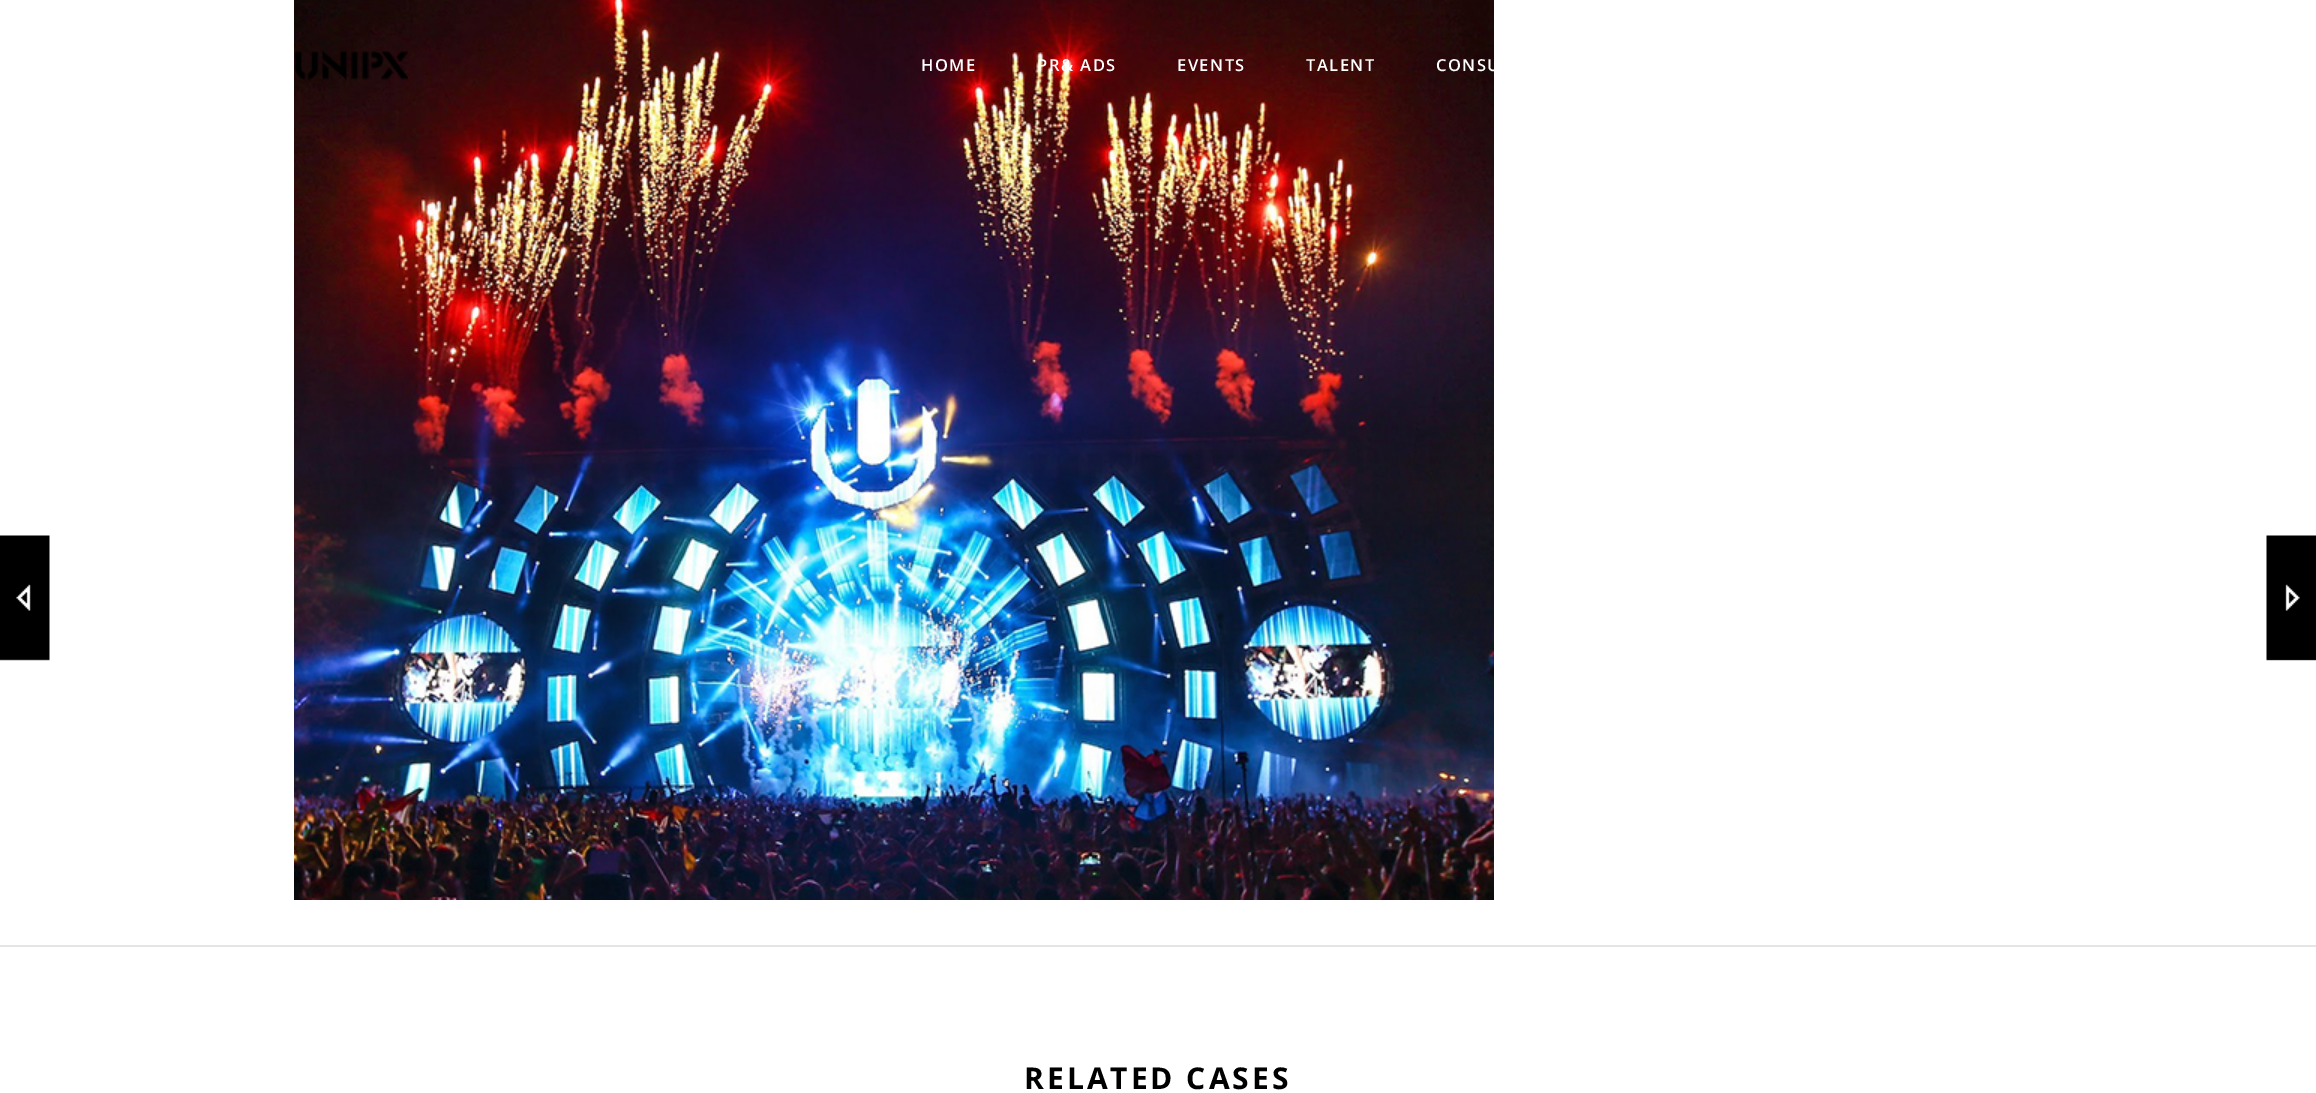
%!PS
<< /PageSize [2316 1093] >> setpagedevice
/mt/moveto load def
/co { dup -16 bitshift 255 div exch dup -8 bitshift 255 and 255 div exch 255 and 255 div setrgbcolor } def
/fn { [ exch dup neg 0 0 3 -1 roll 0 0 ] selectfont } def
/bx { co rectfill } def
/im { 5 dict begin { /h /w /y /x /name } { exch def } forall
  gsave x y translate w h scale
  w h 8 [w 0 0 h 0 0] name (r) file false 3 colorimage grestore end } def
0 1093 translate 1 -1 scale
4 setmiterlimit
0 0 2316 1093 16#FFFFFF bx
(media/1.raw) 294 0 1200 900 im
(media/2.raw) 295 51 113 29 im
(media/3.raw) 0 535 50 126 im
(media/4.raw) 2266 535 50 126 im
0 945 2316 2 16#E5E5E5 bx
/OpenSans-SemiBold 16.5 fn
16#FFFFFF co
921 71 mt 1.5 0 (HOME) ashow
1037 71 mt 1.5 0 (PR& ADS) ashow
1177 71 mt 1.5 0 (EVENTS) ashow
1306 71 mt 1.5 0 (TALENT) ashow
1436 71 mt 1.5 0 (CONSU) ashow
/OpenSans-Bold 30 fn
16#000000 co
1024 1089 mt 3 0 (RELATED CASES) ashow
showpage
